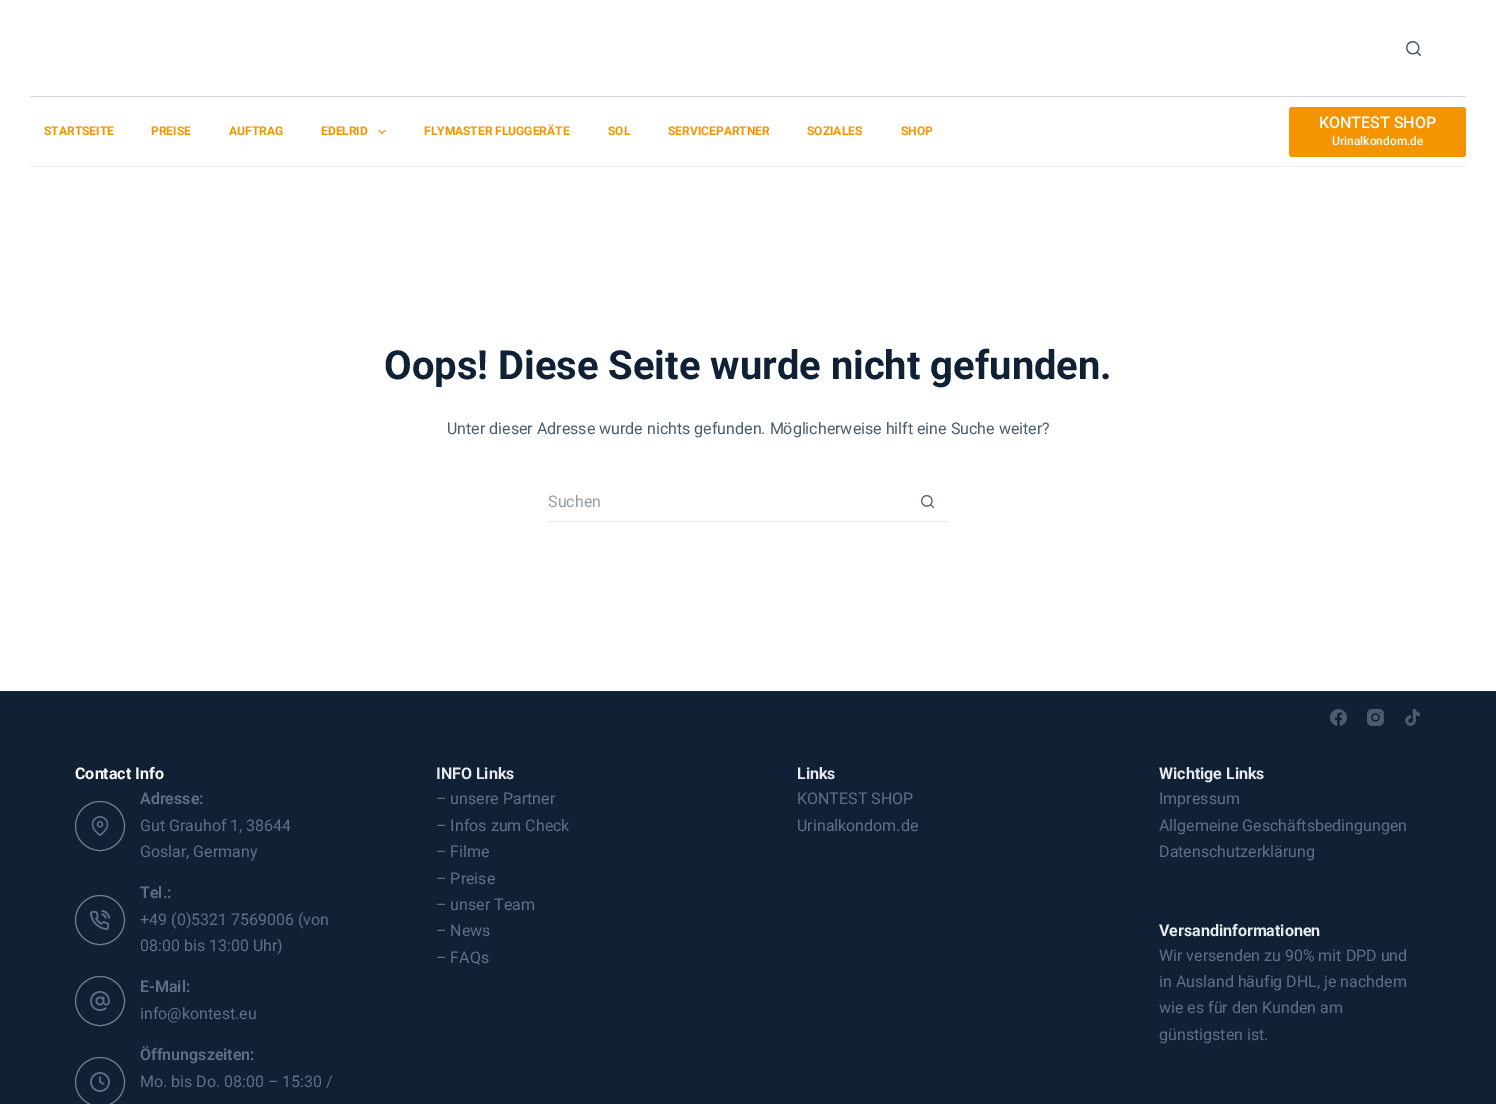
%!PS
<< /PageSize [1496 1104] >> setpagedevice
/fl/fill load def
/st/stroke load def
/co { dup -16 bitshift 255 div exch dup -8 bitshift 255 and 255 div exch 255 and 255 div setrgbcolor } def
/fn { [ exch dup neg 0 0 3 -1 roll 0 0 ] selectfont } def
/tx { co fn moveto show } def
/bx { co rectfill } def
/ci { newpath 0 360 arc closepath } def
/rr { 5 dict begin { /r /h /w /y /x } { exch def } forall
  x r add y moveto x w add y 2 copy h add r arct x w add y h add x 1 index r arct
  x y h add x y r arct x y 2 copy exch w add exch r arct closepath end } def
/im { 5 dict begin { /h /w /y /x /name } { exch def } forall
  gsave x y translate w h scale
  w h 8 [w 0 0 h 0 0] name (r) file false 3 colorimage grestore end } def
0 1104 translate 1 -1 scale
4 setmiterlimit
0 0 1496 1104 16#FFFFFF bx
(media/1.raw) 1406 41 15 15 im
30 96 1436 1 16#D5D8DC bx
30 166 1436 1 16#EAECED bx
(media/2.raw) 378 129 8 6 im
16#F39400 co
1289 107 177 50 3 rr fl
548 521 400 1 16#E7EBEE bx
(media/3.raw) 921 495 13 13 im
0 691 1496 413 16#102136 bx
(media/4.raw) 1330 709 17 17 im
(media/5.raw) 1367 709 17 17 im
(media/6.raw) 1405 709 15 17 im
16#75808D co
100 826 24.5 ci st
(media/7.raw) 91 816 18 20 im
100 920 24.5 ci st
(media/8.raw) 90 910 20 20 im
100 1001 24.5 ci st
(media/9.raw) 90 991 20 20 im
100 1082 24.5 ci st
(media/10.raw) 90 1072 20 20 im
(STARTSEITE) 44 135 /Roboto-Bold 12 16#F39400 tx
(PREISE) 151 135 /Roboto-Bold 12 16#F39400 tx
(AUFTRAG) 229 135 /Roboto-Bold 12 16#F39400 tx
(EDELRID) 321 135 /Roboto-Bold 12 16#F39400 tx
(FLYMASTER FLUGGERÄTE) 424 135 /Roboto-Bold 12 16#F39400 tx
(SOL) 608 135 /Roboto-Bold 12 16#F39400 tx
(SERVICEPARTNER) 668 135 /Roboto-Bold 12 16#F39400 tx
(SOZIALES) 807 135 /Roboto-Bold 12 16#F39400 tx
(SHOP) 901 135 /Roboto-Bold 12 16#F39400 tx
(KONTEST SHOP) 1319 128 /Roboto-Medium 16 16#FFFFFF tx
(Urinalkondom.de) 1332 145 /Roboto-Medium 12 16#FFFFFF tx
(Oops! Diese Seite wurde nicht gefunden.) 384 379 /Roboto-Bold 40 16#102136 tx
(Unter dieser Adresse wurde nichts gefunden. Möglicherweise hilft eine Suche weiter?) 447 434 /Roboto-Regular 16 16#4D5D6D tx
(Suchen) 548 507 /Roboto-Regular 16 16#949EA7 tx
(Contact Info) 75 779 /Roboto-Bold 16 16#FFFFFF tx
(Adresse:) 140 804 /Roboto-SemiBold 16 16#5E7086 tx
(Gut Grauhof 1, 38644) 140 831 /Roboto-Regular 16 16#5E7086 tx
(Goslar, Germany) 140 857 /Roboto-Regular 16 16#5E7086 tx
(Tel.:) 140 898 /Roboto-SemiBold 16 16#5E7086 tx
(+49 \(0\)5321 7569006 \(von) 140 925 /Roboto-Regular 16 16#5E7086 tx
(08:00 bis 13:00 Uhr\)) 140 951 /Roboto-Regular 16 16#5E7086 tx
(E-Mail:) 140 992 /Roboto-SemiBold 16 16#5E7086 tx
(info@kontest.eu) 140 1019 /Roboto-Regular 16 16#5E7086 tx
(Öffnungszeiten:) 140 1060 /Roboto-SemiBold 16 16#5E7086 tx
(Mo. bis Do. 08:00 – 15:30 /) 140 1087 /Roboto-Regular 16 16#5E7086 tx
(INFO Links) 436 779 /Roboto-Bold 16 16#E7EBEE tx
(– unsere Partner) 436 804 /Roboto-Regular 16 16#5E7086 tx
(– Infos zum Check) 436 831 /Roboto-Regular 16 16#5E7086 tx
(– Filme) 436 857 /Roboto-Regular 16 16#5E7086 tx
(– Preise) 436 884 /Roboto-Regular 16 16#5E7086 tx
(– unser Team) 436 910 /Roboto-Regular 16 16#5E7086 tx
(– News) 436 936 /Roboto-Regular 16 16#5E7086 tx
(– FAQs) 436 963 /Roboto-Regular 16 16#5E7086 tx
(Links) 797 779 /Roboto-Bold 16 16#E7EBEE tx
(KONTEST SHOP) 797 804 /Roboto-Regular 16 16#5E7086 tx
(Urinalkondom.de) 797 831 /Roboto-Regular 16 16#5E7086 tx
(Wichtige Links) 1159 779 /Roboto-Bold 16 16#E7EBEE tx
(Impressum) 1159 804 /Roboto-Regular 16 16#5E7086 tx
(Allgemeine Geschäftsbedingungen) 1159 831 /Roboto-Regular 16 16#5E7086 tx
(Datenschutzerklärung) 1159 857 /Roboto-Regular 16 16#5E7086 tx
(Versandinformationen) 1159 936 /Roboto-Bold 16 16#E7EBEE tx
(Wir versenden zu 90% mit DPD und) 1159 961 /Roboto-Regular 16 16#5E7086 tx
(in Ausland häufig DHL, je nachdem) 1159 987 /Roboto-Regular 16 16#5E7086 tx
(wie es für den Kunden am) 1159 1013 /Roboto-Regular 16 16#5E7086 tx
(günstigsten ist.) 1159 1040 /Roboto-Regular 16 16#5E7086 tx
showpage
